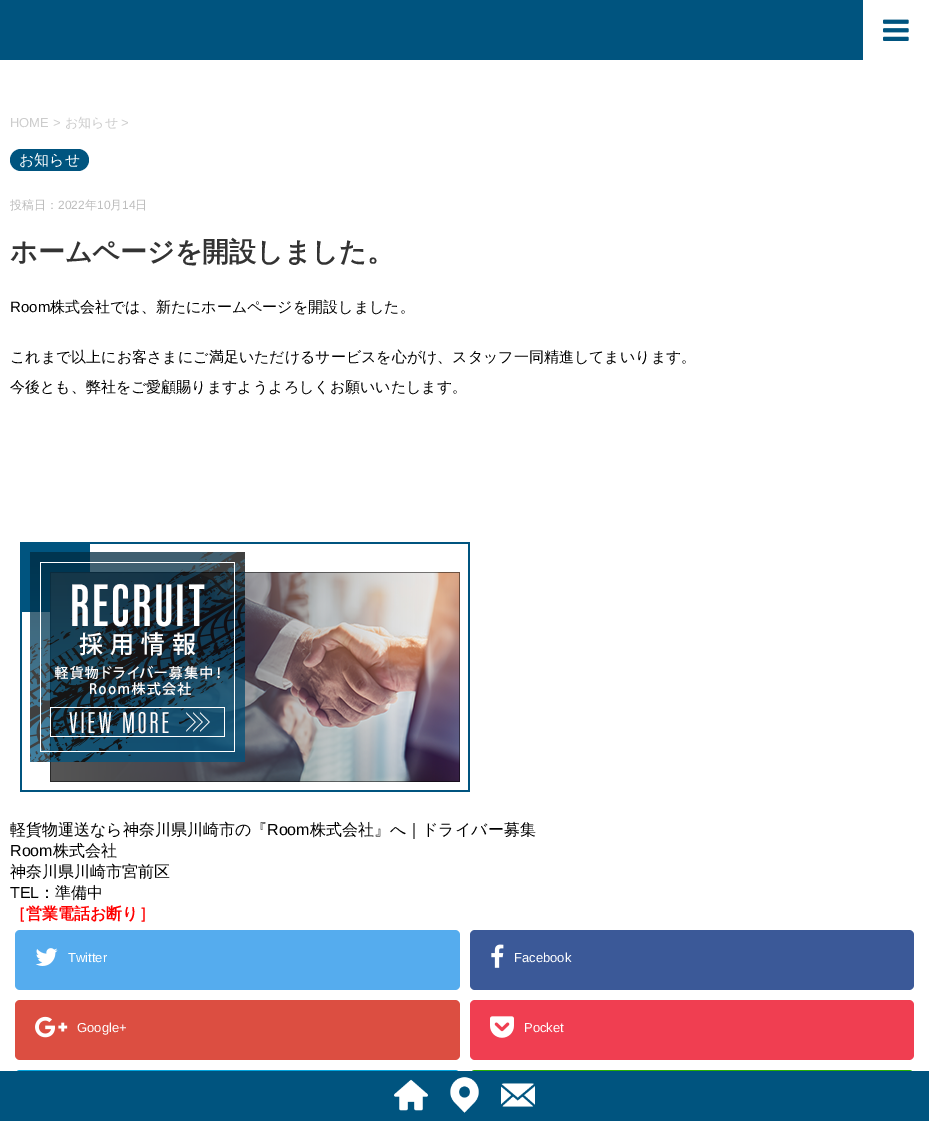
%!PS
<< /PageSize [929 1121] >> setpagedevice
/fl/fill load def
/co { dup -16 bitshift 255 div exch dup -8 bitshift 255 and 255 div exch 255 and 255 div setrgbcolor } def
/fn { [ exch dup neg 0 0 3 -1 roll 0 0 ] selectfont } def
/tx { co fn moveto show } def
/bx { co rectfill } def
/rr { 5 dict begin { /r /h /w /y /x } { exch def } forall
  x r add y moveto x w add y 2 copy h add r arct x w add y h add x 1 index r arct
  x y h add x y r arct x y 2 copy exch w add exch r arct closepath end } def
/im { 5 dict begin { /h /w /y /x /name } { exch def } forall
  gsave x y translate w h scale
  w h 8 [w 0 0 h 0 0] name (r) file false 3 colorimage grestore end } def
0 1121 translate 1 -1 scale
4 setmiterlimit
0 0 929 1121 16#FFFFFF bx
0 0 863 60 16#00547F bx
(media/1.raw) 883 19 26 22 im
10 149 79 22 11 rr fl
(media/2.raw) 20 542 450 250 im
16#55ACEE co
15 930 445 60 5 rr fl
(media/3.raw) 35 948 23 18 im
16#3B5998 co
470 930 444 60 5 rr fl
(media/4.raw) 491 944 13 24 im
16#DC4E41 co
15 1000 445 60 5 rr fl
(media/5.raw) 35 1016 33 22 im
16#F03E51 co
470 1000 444 60 5 rr fl
(media/6.raw) 490 1016 24 22 im
16#00A5DE co
15 1070 445 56 5 rr fl
16#25AF00 co
470 1070 444 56 5 rr fl
0 1071 929 50 16#00547F bx
(media/7.raw) 394 1079 34 32 im
(media/8.raw) 450 1077 29 36 im
(media/9.raw) 501 1083 34 24 im
(HOME >) 10 127 /LiberationSans-Regular 13 16#CCCCCC tx
(お知らせ) 65 127 /WenQuanYiZenHei-Medium 13 16#CCCCCC tx
(>) 121 127 /LiberationSans-Regular 13 16#CCCCCC tx
(お知らせ) 19 165 /WenQuanYiZenHei-Medium 15 16#FFFFFF tx
(投稿日：) 10 209 /WenQuanYiZenHei-Medium 12 16#BDBDBD tx
(2022) 58 209 /LiberationSans-Regular 12 16#BDBDBD tx
(年) 85 209 /WenQuanYiZenHei-Medium 12 16#BDBDBD tx
(10) 97 209 /LiberationSans-Regular 12 16#BDBDBD tx
(月) 110 209 /WenQuanYiZenHei-Medium 12 16#BDBDBD tx
(14) 122 209 /LiberationSans-Regular 12 16#BDBDBD tx
(日) 135 209 /WenQuanYiZenHei-Medium 12 16#BDBDBD tx
(ホームページを開設しました。) 10 261 /WenQuanYiZenHei-Bold 27 16#333333 tx
(Room) 10 312 /LiberationSans-Regular 15 16#000000 tx
(株式会社では、新たにホームページを開設しました。) 50 312 /WenQuanYiZenHei-Medium 15 16#000000 tx
(これまで以上にお客さまにご満足いただけるサービスを心がけ、スタッフ一同精進してまいります。) 10 362 /WenQuanYiZenHei-Medium 15 16#000000 tx
(今後とも、弊社をご愛顧賜りますようよろしくお願いいたします。) 10 392 /WenQuanYiZenHei-Medium 15 16#000000 tx
(軽貨物運送なら神奈川県川崎市の『) 10 835 /WenQuanYiZenHei-Medium 16 16#000000 tx
(Room) 267 835 /LiberationSans-Regular 16 16#000000 tx
(株式会社』へ｜ドライバー募集) 310 835 /WenQuanYiZenHei-Medium 16 16#000000 tx
(Room) 10 856 /LiberationSans-Regular 16 16#000000 tx
(株式会社) 53 856 /WenQuanYiZenHei-Medium 16 16#000000 tx
(神奈川県川崎市宮前区) 10 877 /WenQuanYiZenHei-Medium 16 16#000000 tx
(TEL) 10 898 /LiberationSans-Regular 16 16#000000 tx
(：準備中) 39 898 /WenQuanYiZenHei-Medium 16 16#000000 tx
(［営業電話お断り］) 10 919 /WenQuanYiZenHei-Bold 16 16#FF0000 tx
(Twitter) 68 962 /LiberationSans-Regular 13 16#FFFFFF tx
(Facebook) 514 962 /LiberationSans-Regular 13 16#FFFFFF tx
(Google+) 77 1032 /LiberationSans-Regular 13 16#FFFFFF tx
(Pocket) 524 1032 /LiberationSans-Regular 13 16#FFFFFF tx
showpage
